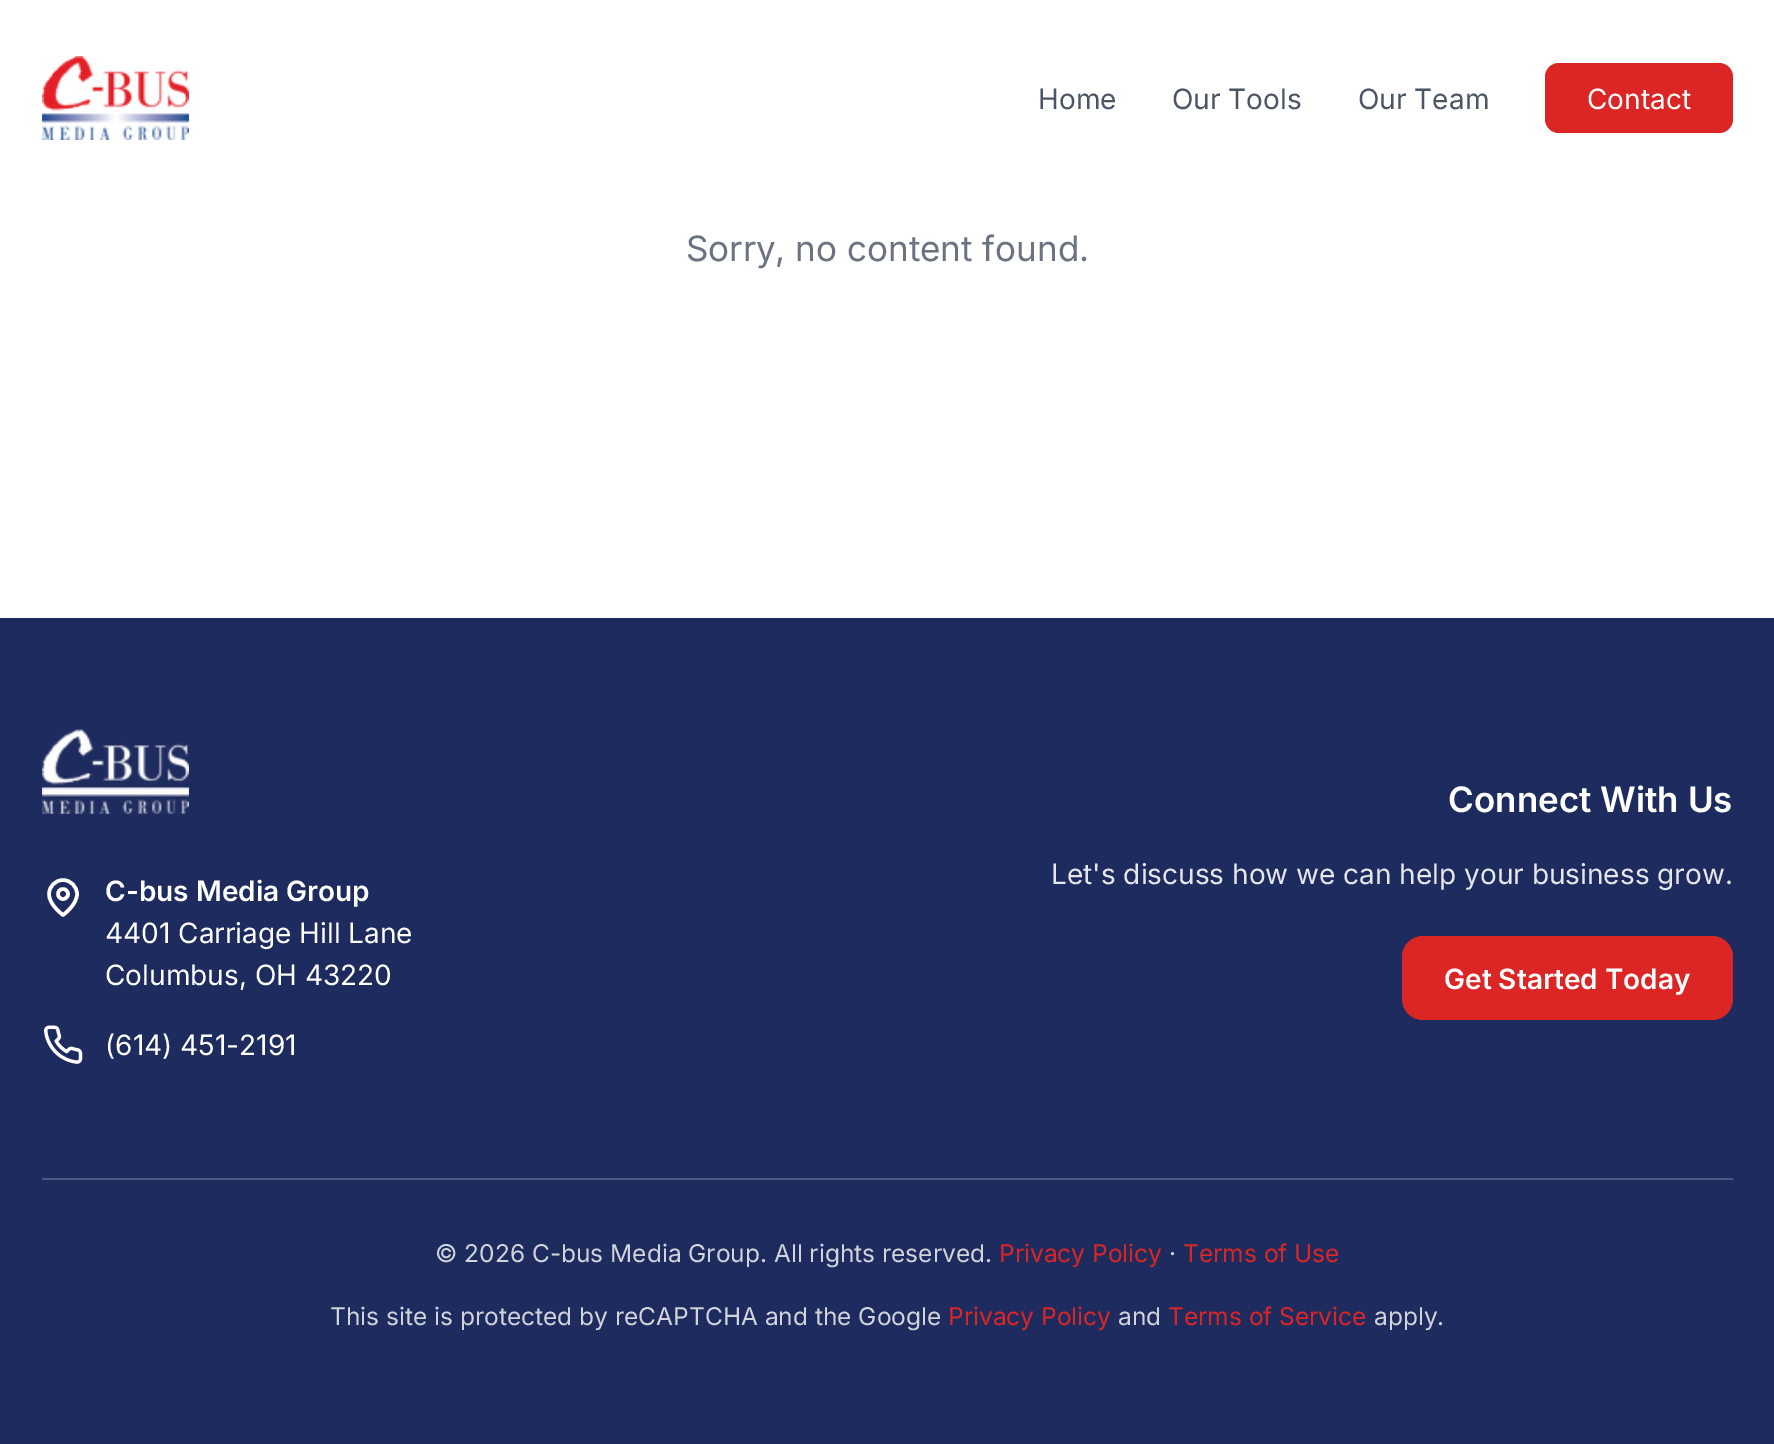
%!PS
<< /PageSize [1774 1444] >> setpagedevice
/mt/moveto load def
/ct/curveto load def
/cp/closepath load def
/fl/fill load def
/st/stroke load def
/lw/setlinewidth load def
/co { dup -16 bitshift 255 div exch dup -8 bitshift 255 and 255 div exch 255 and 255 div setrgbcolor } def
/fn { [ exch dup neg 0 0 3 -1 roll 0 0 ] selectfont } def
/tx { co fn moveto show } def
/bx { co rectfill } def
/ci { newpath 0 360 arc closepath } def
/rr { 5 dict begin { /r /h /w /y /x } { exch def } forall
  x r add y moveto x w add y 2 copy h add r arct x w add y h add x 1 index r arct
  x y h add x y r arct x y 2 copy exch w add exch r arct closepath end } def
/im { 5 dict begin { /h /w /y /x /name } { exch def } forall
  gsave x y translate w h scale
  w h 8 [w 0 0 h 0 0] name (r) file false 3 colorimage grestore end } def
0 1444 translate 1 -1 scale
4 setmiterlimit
0 0 1774 1444 16#FFFFFF bx
(media/1.raw) 42 56 147 84 im
16#DC2626 co
1545 63 188 70 14 rr fl
0 618 1774 826 16#1E2B5E bx
(media/2.raw) 42 729 147 85 im
16#FFFFFF co
3.5 lw
1 setlinecap
1 setlinejoin
77 894 mt 77 905 63 915 63 915 ct 63 915 49 905 49 894 ct 49 886.5 55.5 880 63 880 ct 70.5 880 77 886.5 77 894 ct cp st
0 setlinecap
0 setlinejoin
63 894 5 ci st
(media/3.raw) 43 1025 40 39 im
16#DC2626 co
1402 936 331 84 21 rr fl
42 1178 1691 2 16#4B557E bx
(Home) 1038 109 /Inter-Regular 28 16#4B5563 tx
(Our Tools) 1172 109 /Inter-Regular 28 16#4B5563 tx
(Our Team) 1358 109 /Inter-Regular 28 16#4B5563 tx
(Contact) 1587 109 /Inter-Regular 28 16#FFFFFF tx
(Sorry, no content found.) 686 261 /Inter-Regular 35 16#6B7280 tx
(C-bus Media Group) 105 901 /Inter-SemiBold 28 16#FFFFFF tx
(4401 Carriage Hill Lane) 105 943 /Inter-Regular 28 16#FFFFFF tx
(Columbus, OH 43220) 105 985 /Inter-Regular 28 16#FFFFFF tx
(\(614\) 451-2191) 105 1055 /Inter-Regular 28 16#FFFFFF tx
(Connect With Us) 1448 812 /Inter-SemiBold 35 16#FFFFFF tx
(Let's discuss how we can help your business grow.) 1051 884 /Inter-Regular 28 16#E5E7EB tx
(Get Started Today) 1444 989 /Inter-SemiBold 28 16#FFFFFF tx
(© 2026 C-bus Media Group. All rights reserved.) 435 1262 /Inter-Regular 24.5 16#D1D5DB tx
(Privacy Policy) 999 1262 /Inter-Regular 24.5 16#DC2626 tx
(·) 1169 1262 /Inter-Regular 24.5 16#D1D5DB tx
(Terms of Use) 1183 1262 /Inter-Regular 24.5 16#DC2626 tx
(This site is protected by reCAPTCHA and the Google) 330 1325 /Inter-Regular 24.5 16#D1D5DB tx
(Privacy Policy) 948 1325 /Inter-Regular 24.5 16#DC2626 tx
(and) 1118 1325 /Inter-Regular 24.5 16#D1D5DB tx
(Terms of Service) 1168 1325 /Inter-Regular 24.5 16#DC2626 tx
(apply.) 1374 1325 /Inter-Regular 24.5 16#D1D5DB tx
showpage
